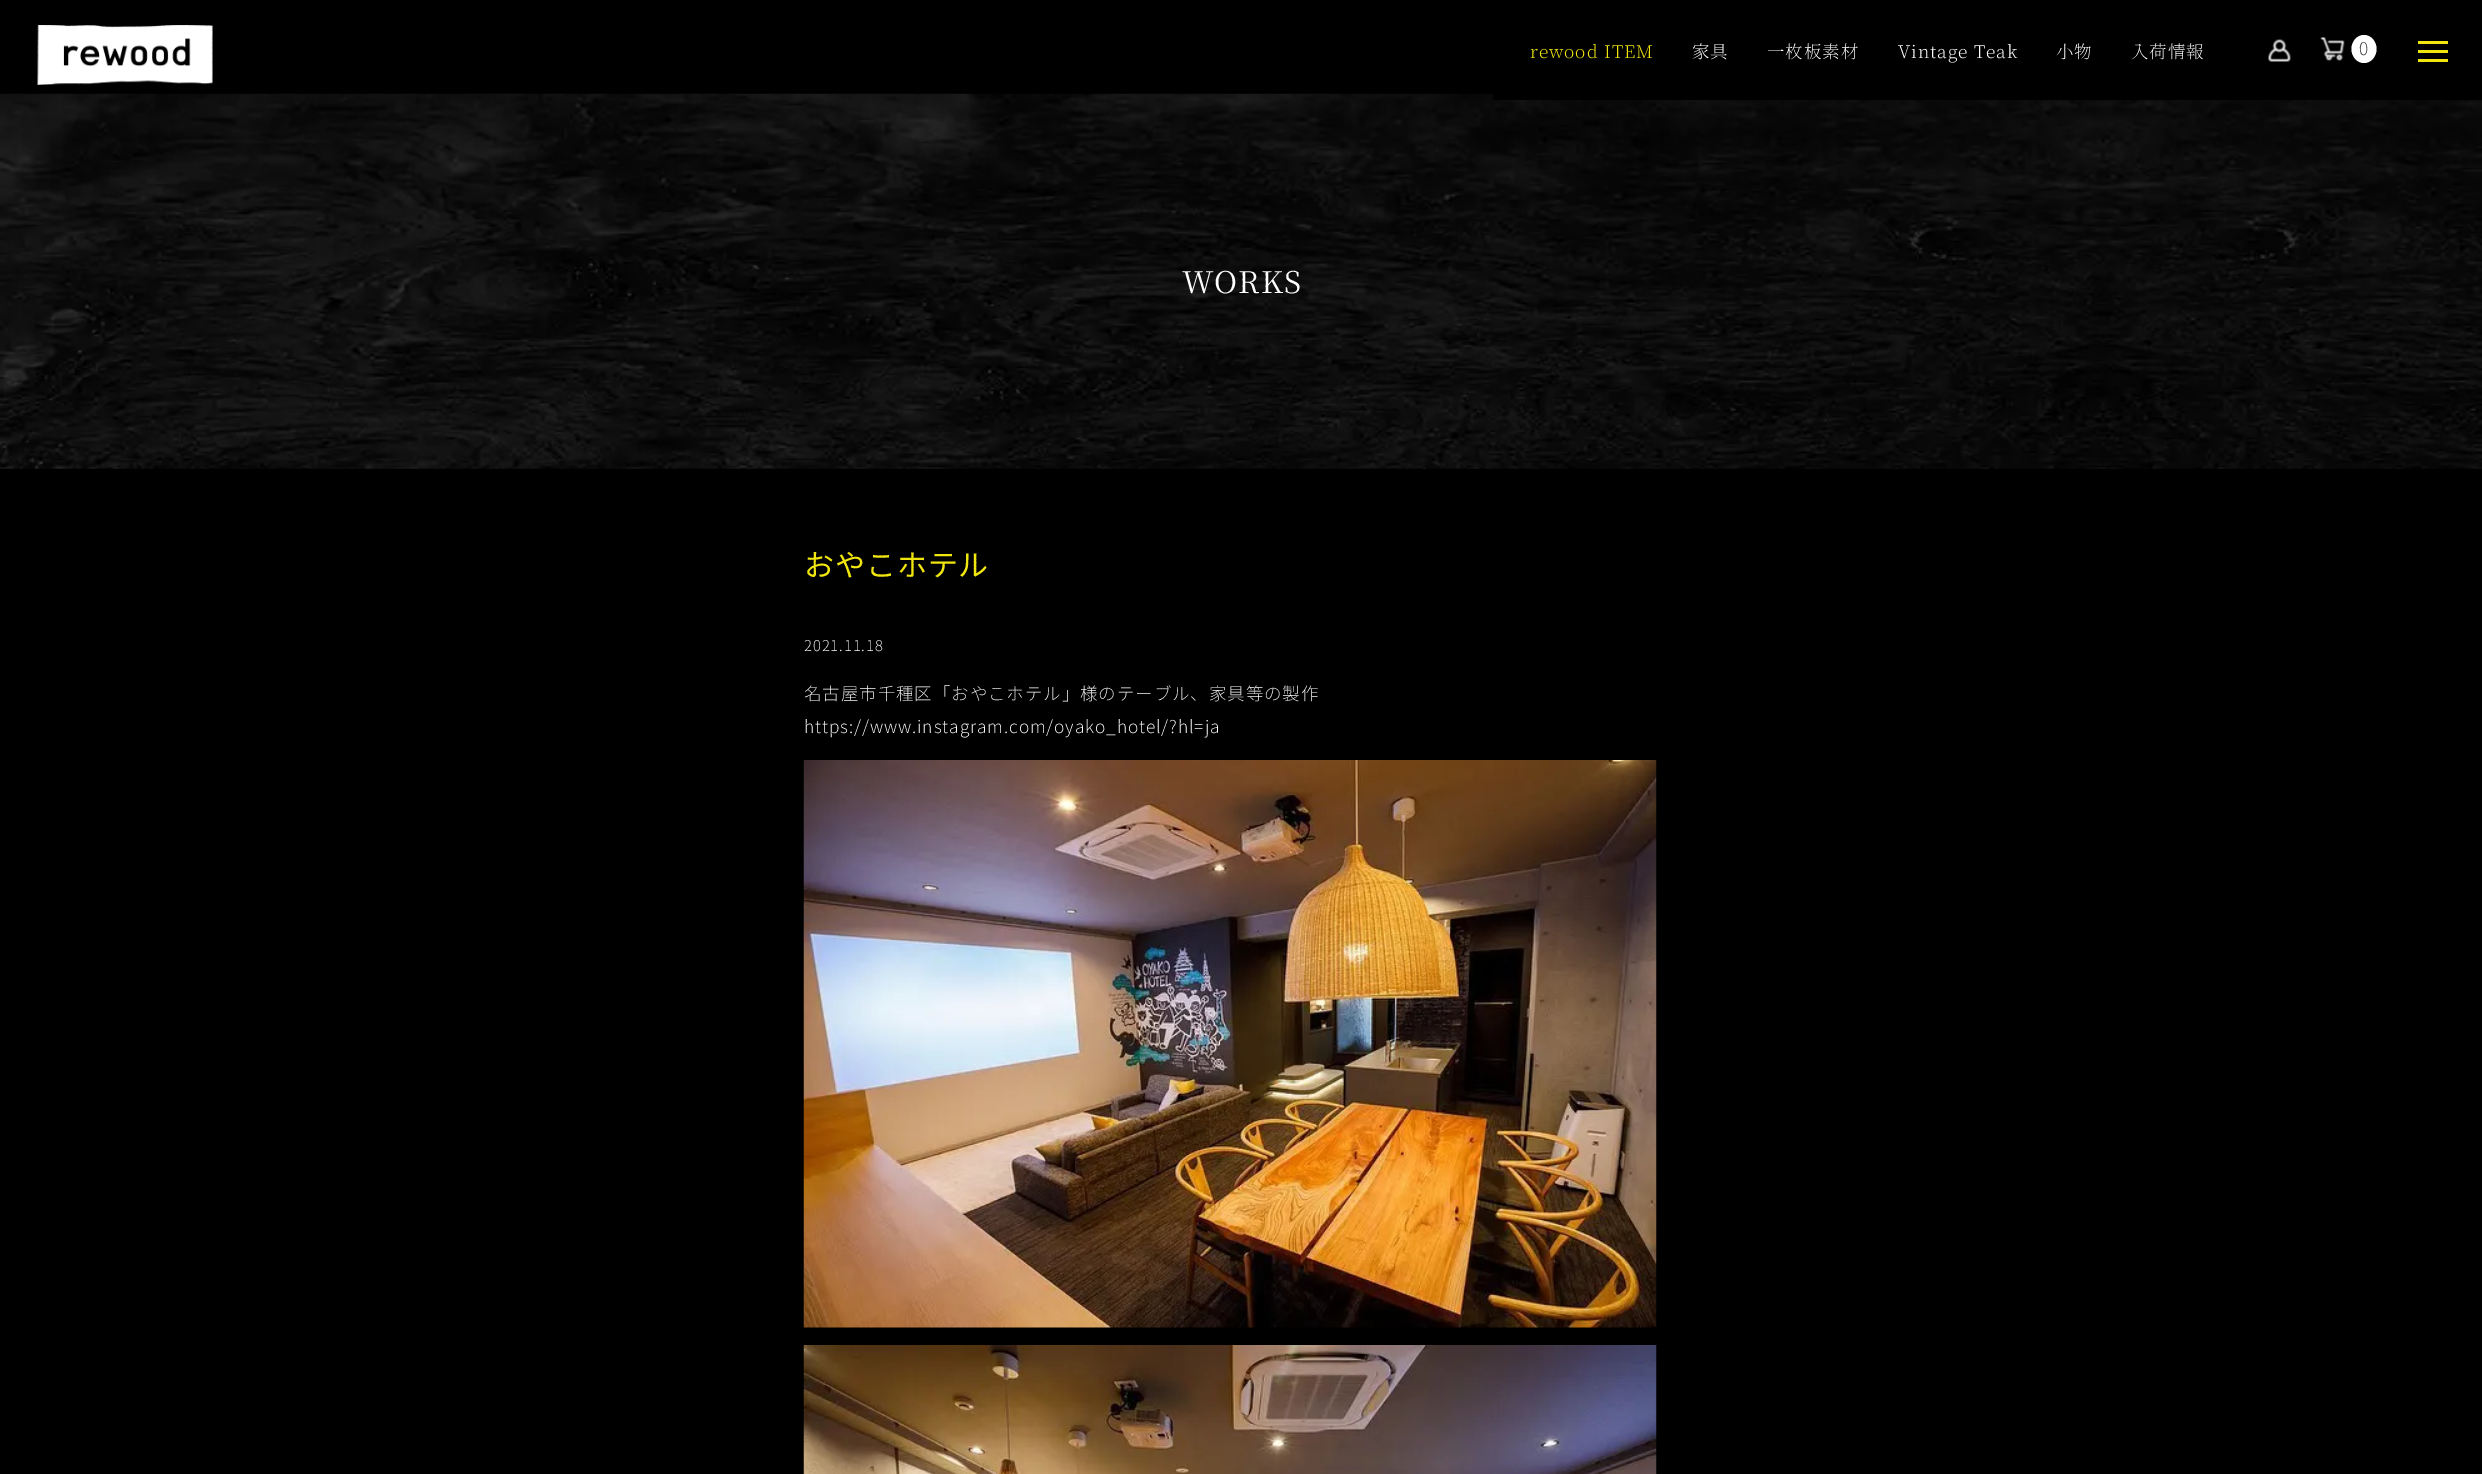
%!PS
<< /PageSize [2482 1474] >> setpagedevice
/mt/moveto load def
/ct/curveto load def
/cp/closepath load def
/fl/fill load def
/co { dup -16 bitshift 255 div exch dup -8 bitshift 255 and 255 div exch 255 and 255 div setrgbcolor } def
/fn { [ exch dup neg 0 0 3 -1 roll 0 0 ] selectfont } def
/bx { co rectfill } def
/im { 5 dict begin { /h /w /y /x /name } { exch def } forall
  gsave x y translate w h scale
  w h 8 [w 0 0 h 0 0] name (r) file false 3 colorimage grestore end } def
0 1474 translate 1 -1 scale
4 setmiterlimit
0 0 2482 1474 16#000000 bx
(media/1.raw) 37 25 176 60 im
(media/4.raw) 0 93 2482 376 im
1493 93 989 7 16#000000 bx
(media/2.raw) 2268 39 23 23 im
(media/3.raw) 2320 37 25 24 im
16#FFFFFF co
2364 35 mt 2371 35 2376.5 41.5 2376.5 49 ct 2376.5 56.5 2371 63 2364 63 ct 2357 63 2351.5 56.5 2351.5 49 ct 2351.5 41.5 2357 35 2364 35 ct cp fl
2418 41 30 3 16#F1E60F bx
2418 50 30 3 16#F1E60F bx
2418 59 30 3 16#F1E60F bx
(media/5.raw) 803 760 854 568 im
(media/6.raw) 803 1345 854 129 im
/NotoSerifJP-ExtraLight 17.5 fn
1530 58 mt .9 0 (rewood ITEM) ashow
16#FFFFFF co
1692 58 mt .9 0 (家具) ashow
1767 58 mt .9 0 (一枚板素材) ashow
1898 58 mt .9 0 (Vintage Teak) ashow
2056 58 mt .9 0 (小物) ashow
2131 58 mt .9 0 (入荷情報) ashow
/NotoSansJP-ExtraLight 17.5 fn
16#333333 co
2359 55 mt .9 0 (0) ashow
/NotoSerifJP-Regular 30 fn
16#FFFFFF co
1182 293 mt .9 0 (WORKS) ashow
/NotoSansJP-Regular 30 fn
16#F1E60F co
804 576 mt .9 0 (おやこホテル) ashow
/NotoSansJP-ExtraLight 15 fn
16#FFFFFF co
804 651 mt .9 0 (2021.11.18) ashow
/NotoSansJP-ExtraLight 17.5 fn
804 700 mt .9 0 (名古屋市千種区「おやこホテル」様のテーブル、家具等の製作) ashow
804 733 mt .9 0 (https://www.instagram.com/oyako_hotel/?hl=ja) ashow
showpage
